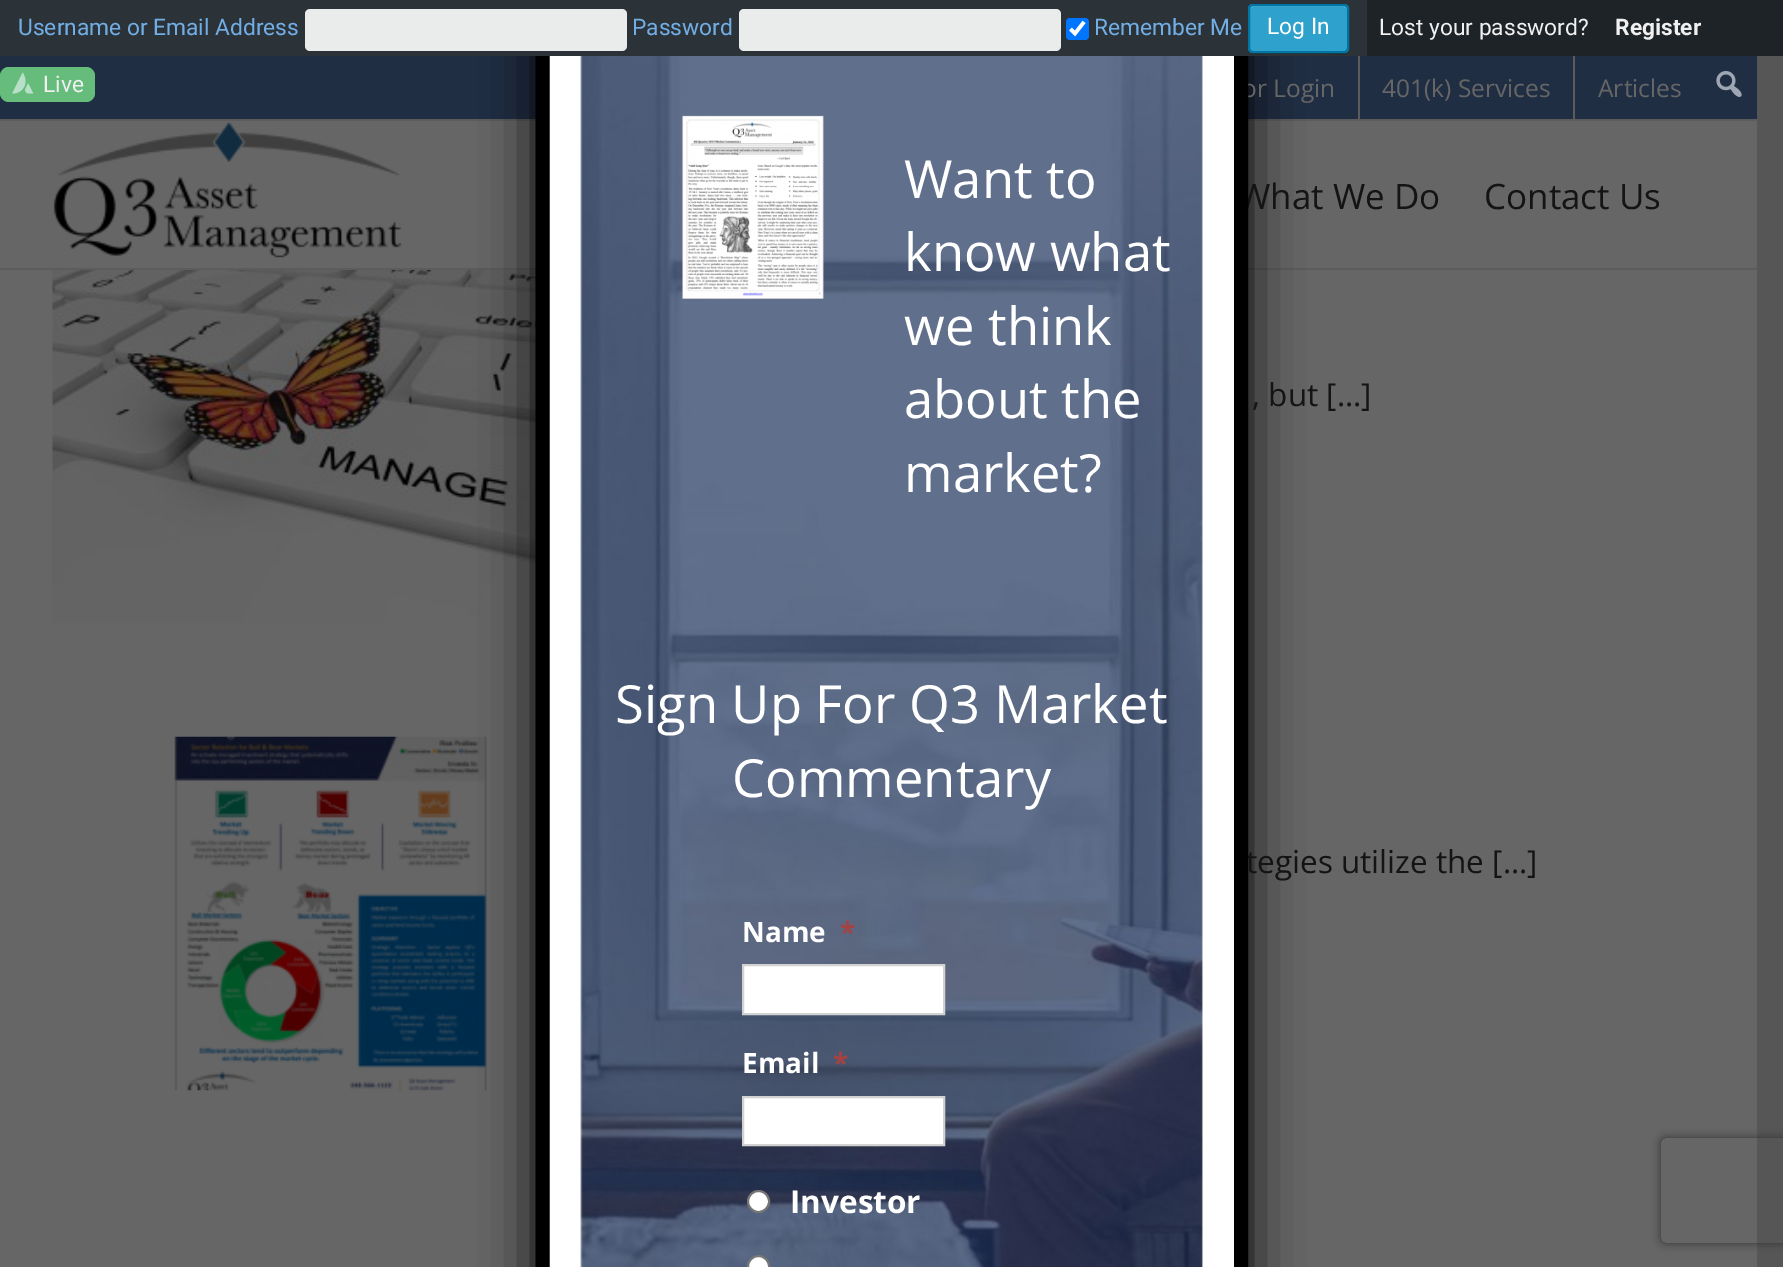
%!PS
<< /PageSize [1783 1267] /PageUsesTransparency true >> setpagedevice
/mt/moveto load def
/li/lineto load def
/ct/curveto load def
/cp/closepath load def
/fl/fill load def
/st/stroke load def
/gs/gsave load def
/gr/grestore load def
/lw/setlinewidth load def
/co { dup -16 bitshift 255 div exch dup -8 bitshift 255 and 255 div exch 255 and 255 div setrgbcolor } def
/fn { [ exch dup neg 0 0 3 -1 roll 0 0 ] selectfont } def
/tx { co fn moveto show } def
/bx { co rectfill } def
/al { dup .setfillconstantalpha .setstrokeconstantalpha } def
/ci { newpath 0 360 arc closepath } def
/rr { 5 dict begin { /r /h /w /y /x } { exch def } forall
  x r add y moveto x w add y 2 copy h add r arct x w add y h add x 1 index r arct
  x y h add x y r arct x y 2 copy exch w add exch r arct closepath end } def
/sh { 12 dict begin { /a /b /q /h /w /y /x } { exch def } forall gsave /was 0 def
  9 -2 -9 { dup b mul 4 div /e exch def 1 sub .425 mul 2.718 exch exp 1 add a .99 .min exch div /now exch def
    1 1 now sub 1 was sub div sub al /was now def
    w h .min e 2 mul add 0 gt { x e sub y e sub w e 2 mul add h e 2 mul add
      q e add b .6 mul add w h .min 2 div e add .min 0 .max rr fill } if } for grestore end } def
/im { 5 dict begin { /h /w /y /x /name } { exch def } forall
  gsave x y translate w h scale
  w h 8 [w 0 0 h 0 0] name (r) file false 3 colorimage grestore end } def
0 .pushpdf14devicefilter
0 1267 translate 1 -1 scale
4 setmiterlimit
0 0 1783 1267 16#565656 bx
1367 0 416 56 16#1D2327 bx
0 56 1757 63 16#202E44 bx
16#65BC7B co
0 67 95 35 9 rr fl
(media/1.raw) 12 72 22 22 im
(media/2.raw) 1716 71 26 26 im
0 270 1757 997 16#666666 bx
0 119 1757 2 16#5C5C5C bx
0 121 1757 147 16#666666 bx
0 268 1757 2 16#5C5C5C bx
(media/6.raw) 52 270 484 353 im
(media/7.raw) 174 736 313 355 im
16#020202 co
536 -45 712 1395 5 26 1 sh
549 56 685 1211 16#FFFFFF bx
1358 56 2 63 16#5C5C5C bx
1573 56 2 63 16#5C5C5C bx
(media/5.raw) 53 120 349 138 im
gs
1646 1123 mt 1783 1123 li 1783 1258 li 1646 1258 li cp 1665 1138 mt 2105 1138 li 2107 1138 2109 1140 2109 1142 ct 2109 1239 li 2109 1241 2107 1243 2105 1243 ct 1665 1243 li 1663 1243 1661 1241 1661 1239 ct 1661 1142 li 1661 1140 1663 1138 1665 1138 ct cp eoclip newpath
16#333333 co
1661 1138 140 105 4 4.5 1 sh
gr
(Lost your password?) 1379 35 /Roboto-Regular 22.75 16#F0F0F1 tx
(Register) 1615 35 /Roboto-Bold 22.75 16#F0F0F1 tx
(Live) 43 92 /Roboto-Regular 22.75 16#F0F0F1 tx
(or Login) 1242 97 /OpenSans-Regular 24.5 16#666666 tx
(401\(k\) Services) 1382 97 /OpenSans-Regular 24.5 16#666666 tx
(Articles) 1598 97 /OpenSans-Regular 24.5 16#666666 tx
(What We Do) 1238 209 /OpenSans-Regular 35 16#141414 tx
(Contact Us) 1484 209 /OpenSans-Regular 35 16#141414 tx
(, but [...]) 1252 406 /OpenSans-Regular 31.5 16#141414 tx
(tegies utilize the [...]) 1246 873 /OpenSans-Regular 31.5 16#141414 tx
16#000000 co
14 lw
542.5 -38.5 mt 1241 -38.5 li 1241 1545 li 542.5 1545 li cp st
0 0 1367 56 16#2C3338 bx
16#252B30 co
1248 49 mt 1248 58 1266 54 1268 54 ct 1329 54 li 1331 54 1349 58 1349 49 ct 1348 51 1346 52 1344 52 ct 1253 52 li 1251 52 1249 51 1248 49 ct cp fl
16#2EA2CC co
1248 4 101 49 5 rr fl
16#53B5D9 co
1253 7 mt 1344 7 li 1346 7 1348 9 1348 10 ct 1348 1 1333 5 1329 5 ct 1269 5 li 1265 5 1250 1 1250 10 ct 1250 9 1251 7 1253 7 ct cp fl
16#0074A2 co
2 lw
1249 5 99 47 4 rr st
(Log In) 1267 34 /Roboto-Regular 22.75 16#FFFFFF tx
(Remember Me) 1094 35 /Roboto-Regular 22.75 16#72AEE6 tx
16#0075FF co
1066 18 23 22 4 rr fl
16#FFFFFF co
3.6 lw
1070.5 29 mt 1075 33.5 li 1084 22 li st
16#EAEBEB co
739 9 322 42 5 rr fl
(Password) 632 35 /Roboto-Regular 22.75 16#72AEE6 tx
16#EAEBEB co
305 9 322 42 5 rr fl
(Username or Email Address) 18 35 /Roboto-Regular 22.75 16#72AEE6 tx
(media/3.raw) 580 56 623 1211 im
(media/4.raw) 682 115 142 184 im
16#FFFFFF co
758.5 1266.5 10.5 ci gs fl gr
16#767676 co
2 lw
st
(Investor) 790 1213 /OpenSans-Bold 31.5 16#FFFFFF tx
758.5 1201.5 10.5 ci gs fl gr
16#767676 co
st
16#FFFFFF co
743 1097 mt 944 1097 li 944 1145 li 743 1145 li cp gs fl gr
16#D2D2D2 co
st
(*) 833 1073 /OpenSans-Bold 28 16#A64242 tx
(Email) 742 1073 /OpenSans-Bold 28 16#FFFFFF tx
743 965 mt 944 965 li 944 1014 li 743 1014 li cp gs fl gr
16#D2D2D2 co
st
(*) 840 942 /OpenSans-Bold 28 16#A64242 tx
(Name) 742 942 /OpenSans-Bold 28 16#FFFFFF tx
(Commentary) 732 797 /OpenSans-Regular 52.5 16#FFFFFF tx
(Sign Up For Q3 Market) 615 723 /OpenSans-Regular 52.5 16#FFFFFF tx
(market?) 904 492 /OpenSans-Regular 52.5 16#FFFFFF tx
(about the) 904 418 /OpenSans-Regular 52.5 16#FFFFFF tx
(we think) 904 345 /OpenSans-Regular 52.5 16#FFFFFF tx
(know what) 904 271 /OpenSans-Regular 52.5 16#FFFFFF tx
(Want to) 904 198 /OpenSans-Regular 52.5 16#FFFFFF tx
.poppdf14devicefilter showpage
